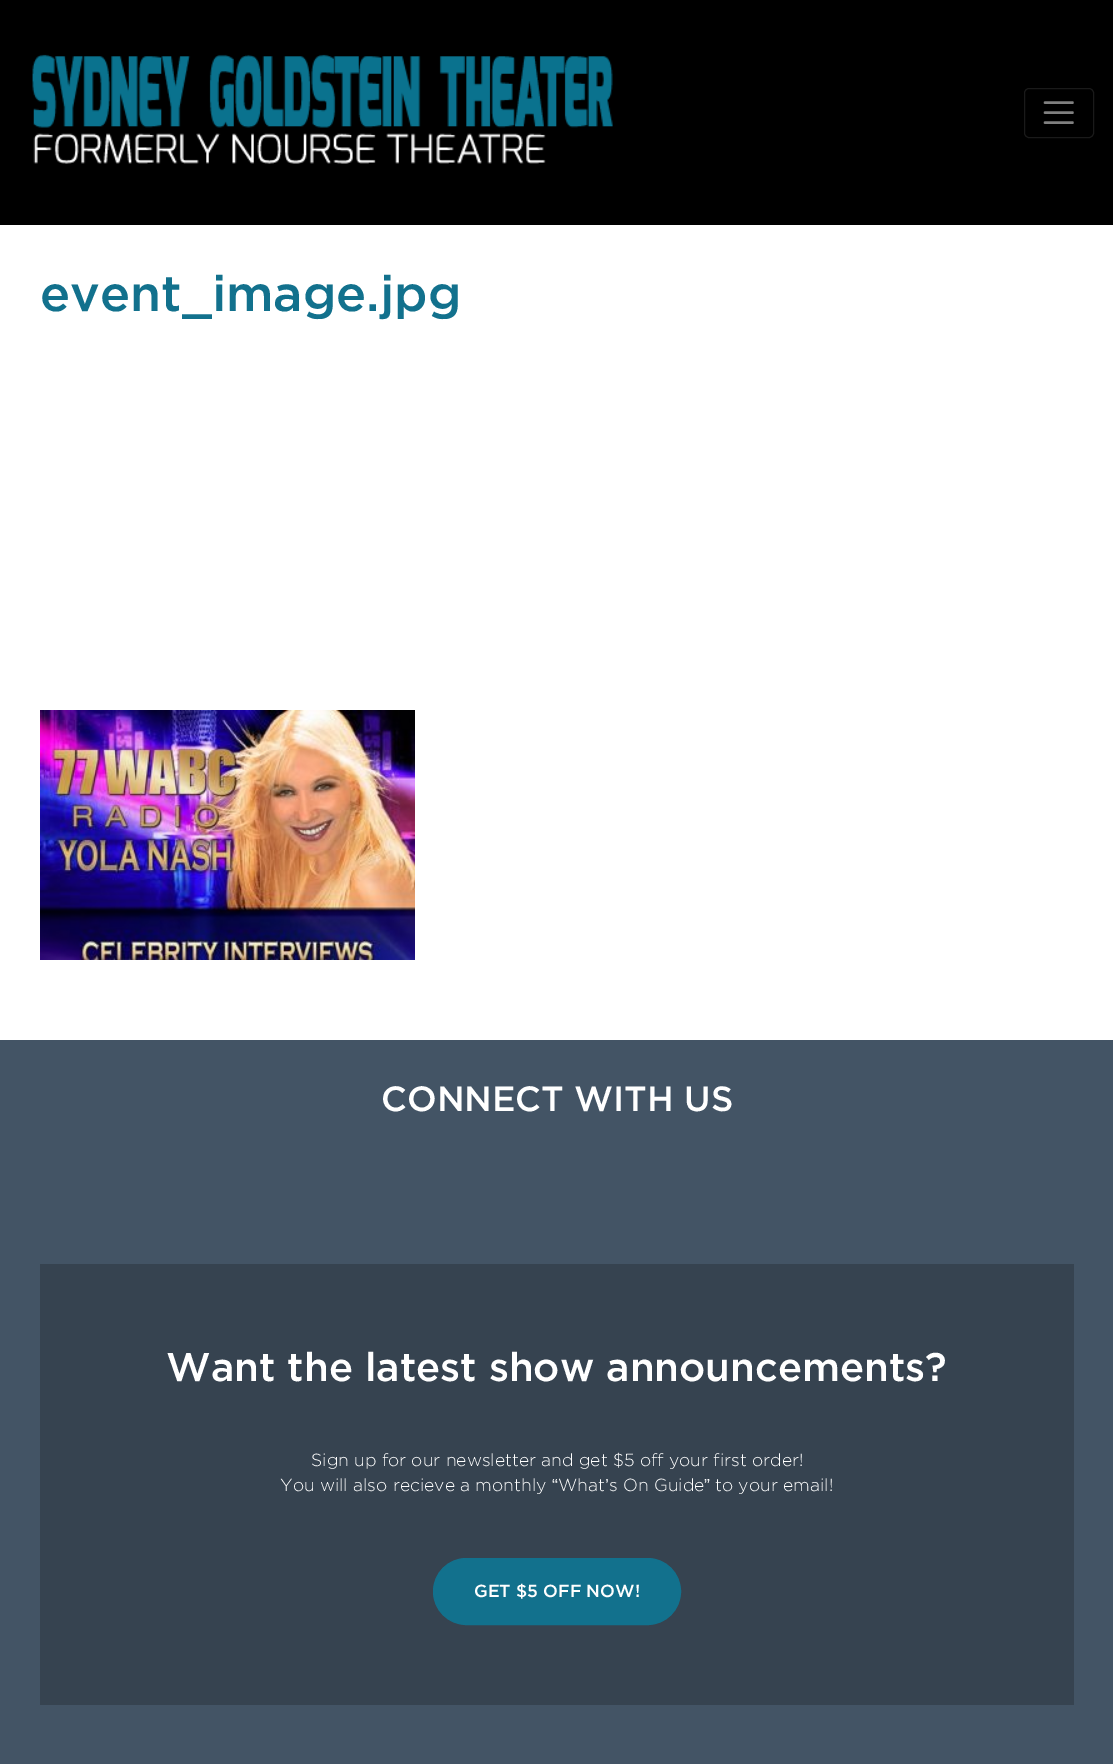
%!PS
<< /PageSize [1113 1764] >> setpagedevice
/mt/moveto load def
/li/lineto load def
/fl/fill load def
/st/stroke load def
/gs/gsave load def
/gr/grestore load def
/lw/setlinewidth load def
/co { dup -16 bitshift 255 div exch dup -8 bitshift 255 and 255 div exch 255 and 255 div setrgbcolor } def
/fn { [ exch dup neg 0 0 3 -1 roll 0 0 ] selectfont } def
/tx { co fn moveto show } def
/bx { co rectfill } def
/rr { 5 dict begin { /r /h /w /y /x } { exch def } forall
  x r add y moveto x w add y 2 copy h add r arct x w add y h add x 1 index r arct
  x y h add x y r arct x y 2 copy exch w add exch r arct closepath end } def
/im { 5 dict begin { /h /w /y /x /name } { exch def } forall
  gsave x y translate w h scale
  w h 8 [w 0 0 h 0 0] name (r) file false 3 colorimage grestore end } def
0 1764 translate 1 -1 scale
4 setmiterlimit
0 0 1113 1764 16#FFFFFF bx
0 0 1113 225 16#000000 bx
(media/1.raw) 32 54 581 110 im
16#1A1A1A co
1024.5 88.5 69 49 4.5 rr st
16#808080 co
2.5 lw
1 setlinecap
1045 102.5 mt 1072.5 102.5 li 1045 112.5 mt 1072.5 112.5 li 1045 122.5 mt 1072.5 122.5 li st
(media/2.raw) 40 710 375 250 im
0 1040 1113 724 16#435465 bx
40 1264 1034 441 16#364350 bx
16#12718D co
433.5 1558.5 247 66 33 rr gs fl gr
1 lw
0 setlinecap
st
(event_image.jpg) 40 311 /Gotham-Medium 50 16#12718D tx
(CONNECT WITH US) 381 1111 /Gotham-Medium 35 16#FFFFFF tx
(Want the latest show announcements?) 166 1381 /Gotham-Medium 40 16#FFFFFF tx
(Sign up for our newsletter and get $5 off your first order!) 311 1466 /Gotham-Light 17.5 16#FFFFFF tx
(You will also recieve a monthly) 280 1491 /Gotham-Light 17.5 16#FFFFFF tx
(“) 552 1491 /LiberationSans-Regular 17.5 16#FFFFFF tx
(What) 558 1491 /Gotham-Light 17.5 16#FFFFFF tx
(’) 605 1491 /LiberationSans-Regular 17.5 16#FFFFFF tx
(s On Guide) 609 1491 /Gotham-Light 17.5 16#FFFFFF tx
(”) 704 1491 /LiberationSans-Regular 17.5 16#FFFFFF tx
(to your email!) 715 1491 /Gotham-Light 17.5 16#FFFFFF tx
(GET $5 OFF NOW!) 474 1597 /Gotham-Medium 17.5 16#FFFFFF tx
showpage
